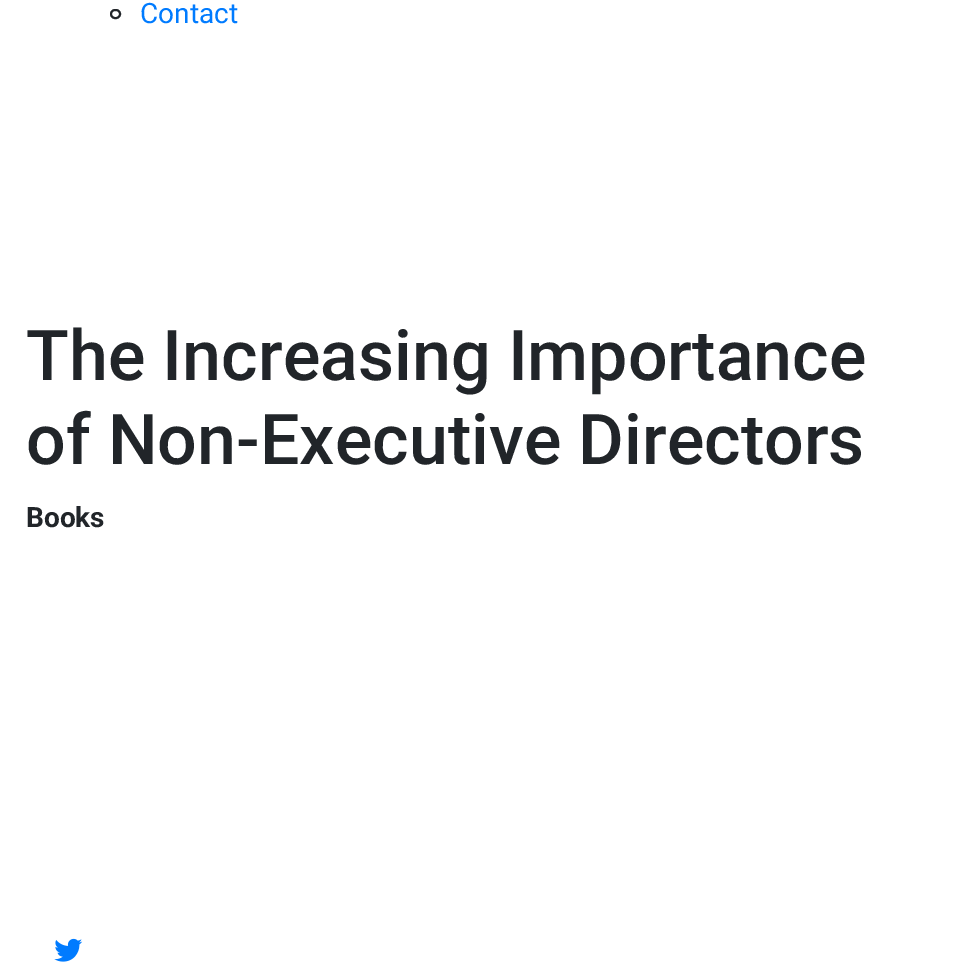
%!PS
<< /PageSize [973 973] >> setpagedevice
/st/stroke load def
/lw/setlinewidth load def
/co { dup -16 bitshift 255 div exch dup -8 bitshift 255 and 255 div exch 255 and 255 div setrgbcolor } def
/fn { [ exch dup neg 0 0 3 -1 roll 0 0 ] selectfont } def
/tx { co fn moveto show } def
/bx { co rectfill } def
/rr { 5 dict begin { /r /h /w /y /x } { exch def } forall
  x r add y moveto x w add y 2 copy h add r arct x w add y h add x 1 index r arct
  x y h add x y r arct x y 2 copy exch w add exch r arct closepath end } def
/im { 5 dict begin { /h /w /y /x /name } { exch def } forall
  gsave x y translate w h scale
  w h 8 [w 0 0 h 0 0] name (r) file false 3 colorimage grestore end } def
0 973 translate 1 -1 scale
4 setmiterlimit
0 0 973 973 16#FFFFFF bx
16#212529 co
2 lw
111 10 9 8 4 rr st
(media/1.raw) 54 938 29 24 im
(Contact) 140 23 /Roboto-Regular 28 16#007BFF tx
(The Increasing Importance) 26 380 /Roboto-Medium 70 16#212529 tx
(of Non-Executive Directors) 26 464 /Roboto-Medium 70 16#212529 tx
(Books) 26 527 /Roboto-Bold 28 16#212529 tx
showpage
